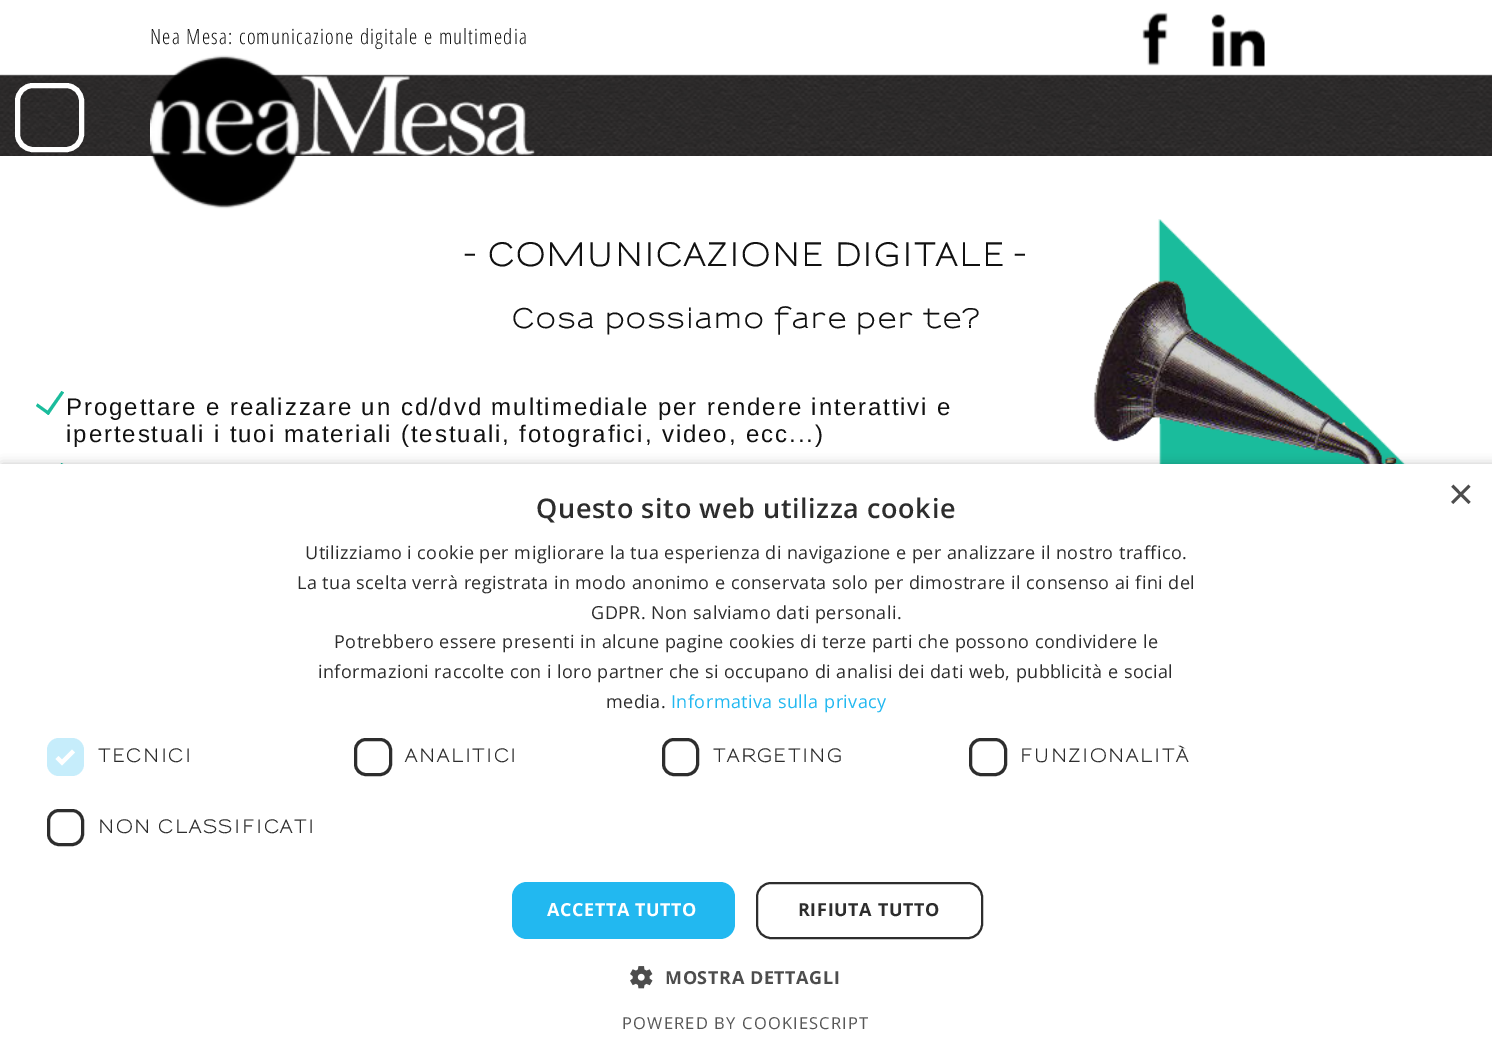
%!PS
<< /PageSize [1492 1047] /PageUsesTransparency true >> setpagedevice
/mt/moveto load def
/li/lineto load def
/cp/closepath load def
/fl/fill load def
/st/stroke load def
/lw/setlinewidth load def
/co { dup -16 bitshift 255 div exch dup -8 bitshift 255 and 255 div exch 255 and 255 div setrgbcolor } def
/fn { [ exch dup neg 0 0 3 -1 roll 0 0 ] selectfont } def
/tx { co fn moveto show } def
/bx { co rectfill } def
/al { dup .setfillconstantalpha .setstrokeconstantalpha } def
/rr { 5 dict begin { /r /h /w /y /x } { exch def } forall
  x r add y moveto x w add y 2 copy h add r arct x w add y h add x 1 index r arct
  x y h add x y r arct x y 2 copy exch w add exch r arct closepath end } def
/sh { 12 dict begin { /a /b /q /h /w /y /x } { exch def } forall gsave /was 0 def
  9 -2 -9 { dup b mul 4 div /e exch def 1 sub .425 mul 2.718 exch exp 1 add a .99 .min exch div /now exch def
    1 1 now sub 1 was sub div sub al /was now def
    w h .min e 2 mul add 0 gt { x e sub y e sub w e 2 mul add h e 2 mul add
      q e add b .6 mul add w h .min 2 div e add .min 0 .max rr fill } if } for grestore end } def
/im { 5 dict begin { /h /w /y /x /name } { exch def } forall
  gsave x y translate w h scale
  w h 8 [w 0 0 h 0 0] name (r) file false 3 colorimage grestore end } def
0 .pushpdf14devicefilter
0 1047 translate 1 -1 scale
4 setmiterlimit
0 0 1492 1047 16#FFFFFF bx
(media/1.raw) 0 74 1492 82 im
(media/2.raw) 150 55 385 154 im
(media/3.raw) 1142 12 26 54 im
(media/4.raw) 1211 14 54 53 im
5 lw
17.5 85.5 64 64 15.5 rr st
(media/5.raw) 1158 219 248 245 im
16#1ABC9C co
61.5 391 mt 64 392.5 li 48.5 415 li 46 413 li cp fl
37.5 403.5 mt 50 412.5 li 48.5 415 li 36 406 li cp fl
61.5 463 mt 64 464.5 li 48.5 487 li 46 485 li cp fl
(media/6.raw) 1093 280 307 184 im
16#000000 co
2 467 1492 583 0 6 .35 sh
0 464 1492 583 16#FFFFFF bx
16#C6EDFB co
47 738 37 38 12 rr fl
16#FFFFFF co
3.9 lw
57 757.5 mt 62 762.5 li 73.5 751 li st
16#2D2D2D co
3 lw
355.5 739.5 35 35 10.5 rr st
663.5 739.5 34 35 10.5 rr st
970.5 739.5 35 35 10.5 rr st
48.5 810.5 34 34 10.5 rr st
16#22B8F0 co
512 882 223 57 15 rr fl
16#2D2D2D co
2 lw
757 883 225 55 14 rr st
(media/7.raw) 630 966 23 23 im
/OpenSans-Light 21 fn
16#111111 co
150 44 mt 1.2 0 (Nea Mesa: comunicazione digitale e multimedia) ashow
/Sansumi-Bold 31.25 fn
465 266 mt 1.2 0 (- COMUNICAZIONE DIGITALE -) ashow
/Sansumi-Bold 26.4 fn
512 328 mt 1.92 0 (Cosa possiamo fare per te?) ashow
/LiberationSans-Regular 24 fn
66 415 mt 1.92 0 (Progettare e realizzare un cd/dvd multimediale per rendere interattivi e) ashow
66 442 mt 1.92 0 (ipertestuali i tuoi materiali \(testuali, fotografici, video, ecc...\)) ashow
(×) 1448 509 /LiberationSans-Regular 44 16#4D4D4D tx
/OpenSans-SemiBold 27 fn
16#2D2D2D co
536 518 mt .6 0 (Questo sito web utilizza cookie) ashow
/OpenSans-Regular 18 fn
305 559 mt .45 0 (Utilizziamo i cookie per migliorare la tua esperienza di navigazione e per analizzare il nostro traffico.) ashow
297 589 mt .45 0 (La tua scelta verrà registrata in modo anonimo e conservata solo per dimostrare il consenso ai fini del) ashow
591 619 mt .45 0 (GDPR. Non salviamo dati personali.) ashow
334 648 mt .45 0 (Potrebbero essere presenti in alcune pagine cookies di terze parti che possono condividere le) ashow
318 678 mt .45 0 (informazioni raccolte con i loro partner che si occupano di analisi dei dati web, pubblicità e social) ashow
606 708 mt .45 0 (media.) ashow
16#22B8F0 co
671 708 mt .45 0 (Informativa sulla privacy) ashow
/Sansumi-Bold 18 fn
16#2D2D2D co
98 762 mt 1.5 0 (TECNICI) ashow
405 762 mt 1.5 0 (ANALITICI) ashow
713 762 mt 1.5 0 (TARGETING) ashow
1020 762 mt 1.5 0 (FUNZIONALITÀ) ashow
98 833 mt 1.5 0 (NON CLASSIFICATI) ashow
/OpenSans-Bold 18 fn
16#FFFFFF co
547 916 mt .6 0 (ACCETTA TUTTO) ashow
16#2D2D2D co
798 916 mt .6 0 (RIFIUTA TUTTO) ashow
16#4D4D4D co
665 984 mt .6 0 (MOSTRA DETTAGLI) ashow
/OpenSans-Regular 16.5 fn
16#575757 co
622 1029 mt 1.2 0 (POWERED BY COOKIESCRIPT) ashow
.poppdf14devicefilter showpage
